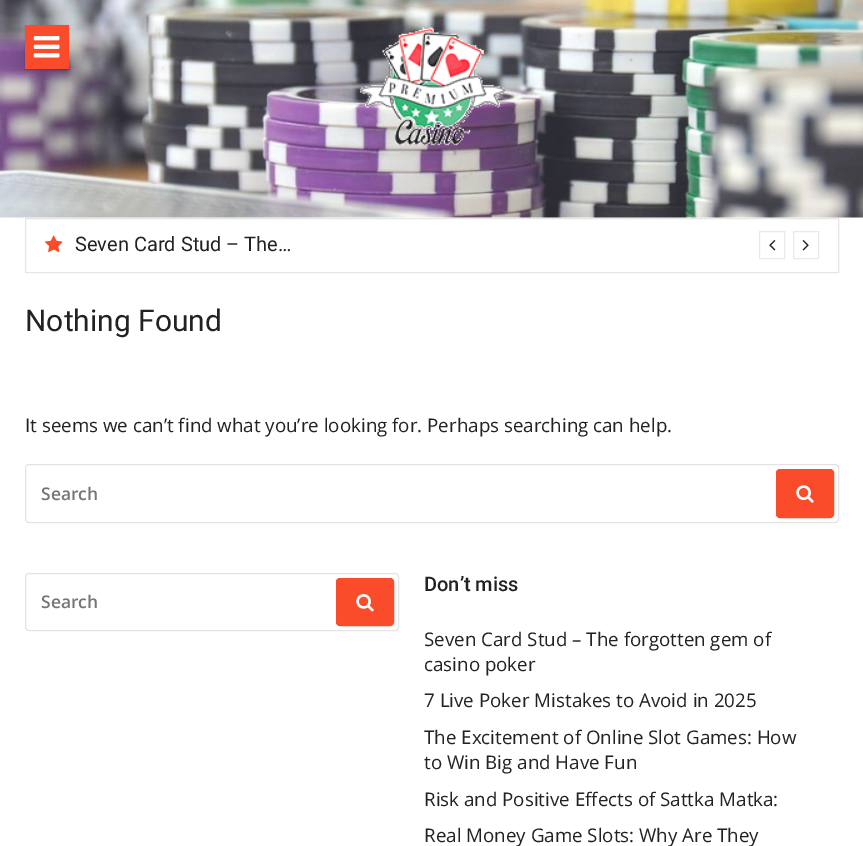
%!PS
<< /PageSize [863 846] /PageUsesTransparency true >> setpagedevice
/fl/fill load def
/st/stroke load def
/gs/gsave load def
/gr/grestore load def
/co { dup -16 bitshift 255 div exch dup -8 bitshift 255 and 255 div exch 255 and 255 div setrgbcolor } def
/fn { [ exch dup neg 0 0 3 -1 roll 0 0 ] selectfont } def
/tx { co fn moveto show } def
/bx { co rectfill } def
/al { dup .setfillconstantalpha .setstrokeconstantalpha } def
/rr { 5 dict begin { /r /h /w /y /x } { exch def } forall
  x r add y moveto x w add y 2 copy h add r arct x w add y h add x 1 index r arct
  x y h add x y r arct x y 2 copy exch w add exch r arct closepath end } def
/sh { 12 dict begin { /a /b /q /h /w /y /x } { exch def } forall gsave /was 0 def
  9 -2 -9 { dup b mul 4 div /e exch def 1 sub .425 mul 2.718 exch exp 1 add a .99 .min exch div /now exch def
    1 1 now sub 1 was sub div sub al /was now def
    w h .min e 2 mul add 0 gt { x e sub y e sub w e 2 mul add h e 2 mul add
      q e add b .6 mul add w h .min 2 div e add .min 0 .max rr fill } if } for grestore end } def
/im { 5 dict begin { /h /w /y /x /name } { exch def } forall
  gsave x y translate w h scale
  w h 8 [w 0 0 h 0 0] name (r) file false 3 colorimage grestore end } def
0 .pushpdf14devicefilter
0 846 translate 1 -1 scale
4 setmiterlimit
0 0 863 846 16#FFFFFF bx
(media/1.raw) 0 0 863 218 im
16#000000 co
25 26 44 44 0 1 .2 sh
25 25 44 44 16#FA4C2A bx
(media/2.raw) 33 36 27 22 im
(media/3.raw) 359 27 147 119 im
16#E6E6E6 co
25.5 218.5 813 54 rectstroke
(media/4.raw) 45 235 18 18 im
16#E9E9E9 co
759.5 231.5 25 27 rectstroke
(media/5.raw) 769 240 7 11 im
793.5 231.5 25 27 rectstroke
(media/6.raw) 802 240 7 11 im
16#E3E3E3 co
25.5 464.5 813 58 3.5 rr st
16#FA4C2A co
776.5 469.5 57 48 3.5 rr gs fl gr
st
(media/7.raw) 796 485 18 18 im
16#E3E3E3 co
25.5 573.5 373 57 3.5 rr st
16#FA4C2A co
336.5 578.5 57 47 3.5 rr gs fl gr
st
(media/8.raw) 356 594 18 18 im
(Seven Card Stud – The…) 75 251 /Roboto-Regular 20 16#222222 tx
(Nothing Found) 25 331 /Roboto-Regular 30 16#222222 tx
(It seems we can’t find what you’re looking for. Perhaps searching can help.) 25 432 /OpenSans-Regular 18.75 16#222222 tx
(Search) 41 500 /OpenSans-SemiBold 17.5 16#757575 tx
(Search) 41 608 /OpenSans-SemiBold 17.5 16#757575 tx
(Don’t miss) 424 591 /Roboto-Medium 20 16#222222 tx
(Seven Card Stud – The forgotten gem of) 424 646 /OpenSans-Regular 18.75 16#222222 tx
(casino poker) 424 671 /OpenSans-Regular 18.75 16#222222 tx
(7 Live Poker Mistakes to Avoid in 2025) 424 707 /OpenSans-Regular 18.75 16#222222 tx
(The Excitement of Online Slot Games: How) 424 744 /OpenSans-Regular 18.75 16#222222 tx
(to Win Big and Have Fun) 424 769 /OpenSans-Regular 18.75 16#222222 tx
(Risk and Positive Effects of Sattka Matka:) 424 806 /OpenSans-Regular 18.75 16#222222 tx
(Real Money Game Slots: Why Are They) 424 842 /OpenSans-Regular 18.75 16#222222 tx
.poppdf14devicefilter showpage
